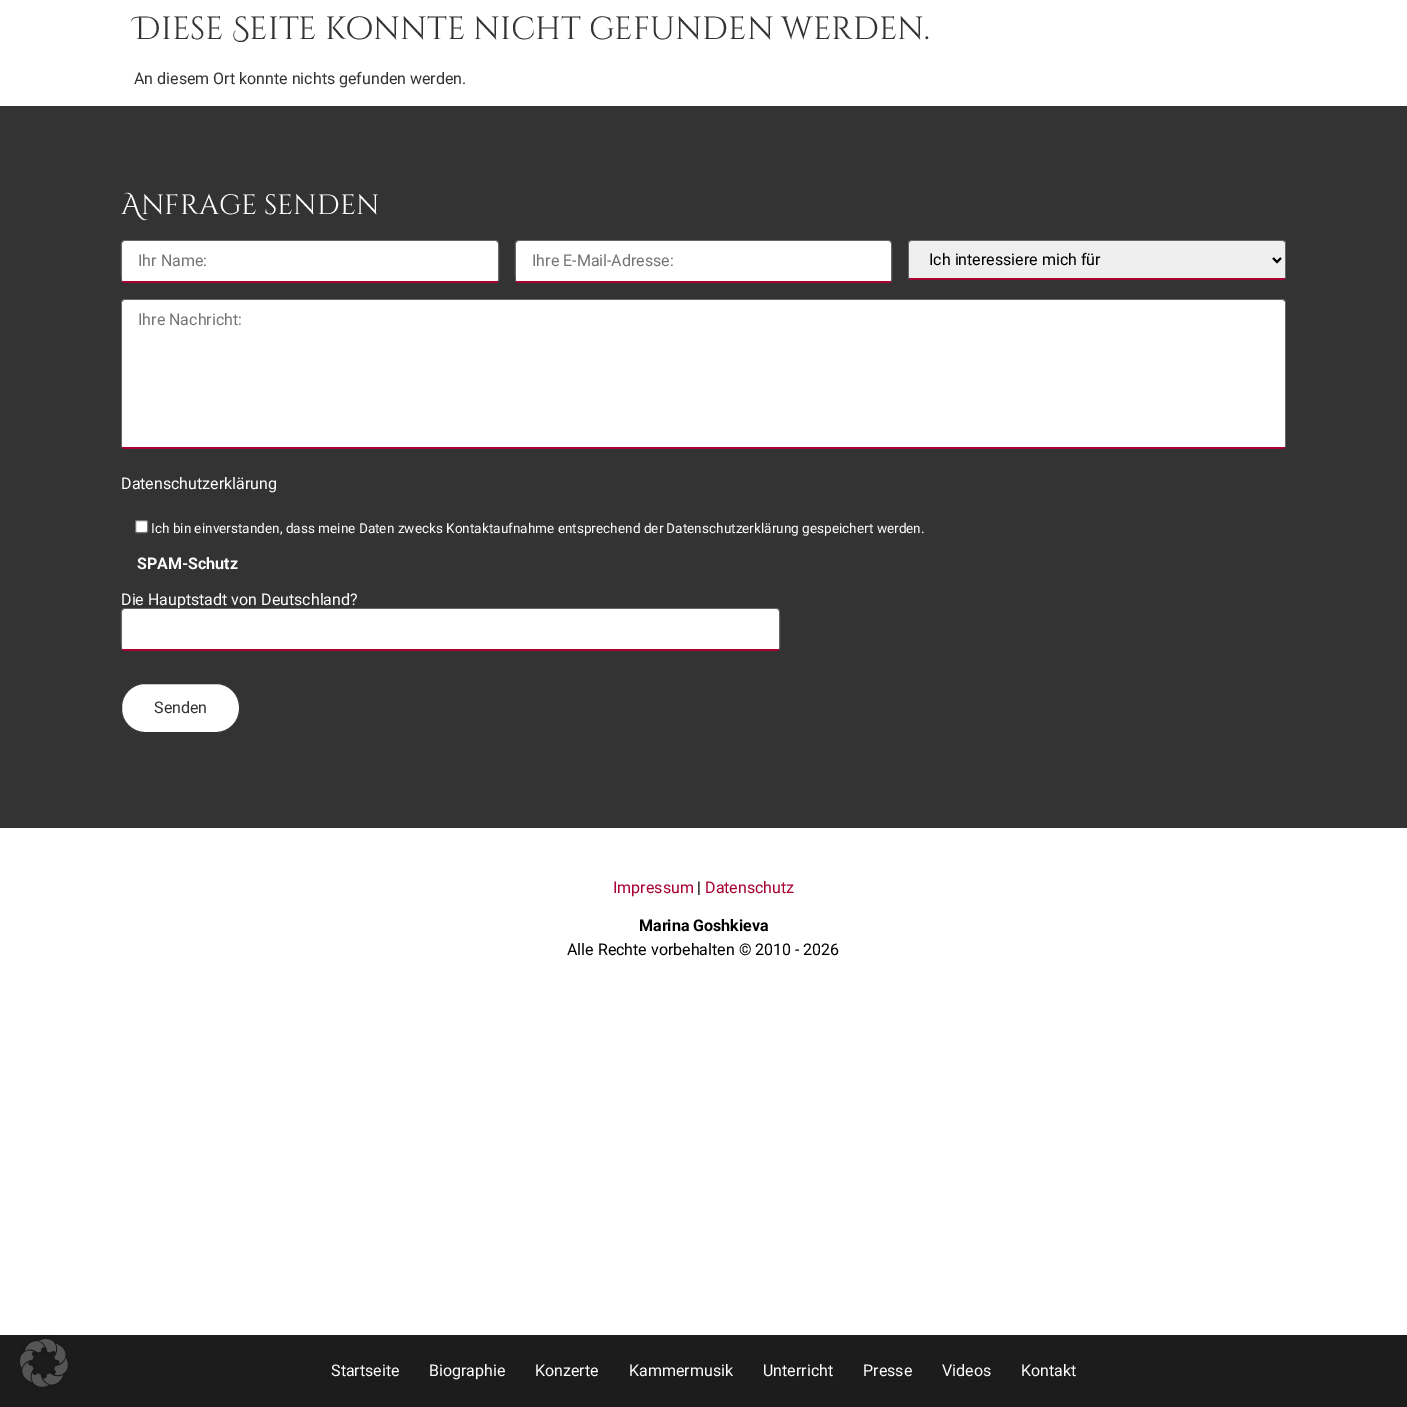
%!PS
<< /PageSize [1407 1407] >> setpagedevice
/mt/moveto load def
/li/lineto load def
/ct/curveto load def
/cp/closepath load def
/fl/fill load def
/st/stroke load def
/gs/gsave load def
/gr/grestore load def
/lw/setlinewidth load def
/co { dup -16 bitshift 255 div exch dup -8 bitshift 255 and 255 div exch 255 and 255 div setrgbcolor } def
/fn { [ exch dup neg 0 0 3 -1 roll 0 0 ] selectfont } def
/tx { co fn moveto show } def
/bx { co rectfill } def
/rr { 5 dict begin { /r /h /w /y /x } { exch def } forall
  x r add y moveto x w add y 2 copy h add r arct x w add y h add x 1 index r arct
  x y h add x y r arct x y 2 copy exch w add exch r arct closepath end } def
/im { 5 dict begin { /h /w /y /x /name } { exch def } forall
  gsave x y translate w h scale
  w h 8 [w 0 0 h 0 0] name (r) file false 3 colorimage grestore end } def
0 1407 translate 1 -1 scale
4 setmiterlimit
0 0 1407 1407 16#FFFFFF bx
0 106 1407 722 16#333333 bx
16#FFFFFF co
124 241 mt 496 241 li 497 241 498 242 498 243 ct 498 280 li 498 281 497 281 496 281 ct 124 281 li 123 281 122 281 122 280 ct 122 243 li 122 242 123 241 124 241 ct cp fl
16#666666 co
124 240 mt 122 241 li 123 242 li 124 241 li 496 241 li 497 242 li 498 241 li 496 240 li cp fl
499 280 mt 499 275 500 243 498 241 ct 497 242 li 498 243 li 498 281 li 498 282 li cp fl
16#A80031 co
124 283 mt 498 283 li 498 282 li 498 281 li 496 281 li 124 281 li 122 281 li 122 282 li cp fl
16#666666 co
121 243 mt 121 248 120 280 122 282 ct 122 281 li 122 243 li 123 242 li 122 241 li cp fl
16#FFFFFF co
518 241 mt 889 241 li 890 241 891 242 891 243 ct 891 280 li 891 281 890 281 889 281 ct 518 281 li 517 281 516 281 516 280 ct 516 243 li 516 242 517 241 518 241 ct cp fl
16#666666 co
518 240 mt 516 241 li 517 242 li 518 241 li 889 241 li 890 242 li 891 241 li 889 240 li cp fl
892 280 mt 892 275 893 243 891 241 ct 890 242 li 891 243 li 891 281 li 891 282 li cp fl
16#A80031 co
518 283 mt 891 283 li 891 282 li 891 281 li 889 281 li 518 281 li 516 281 li 516 282 li cp fl
16#666666 co
515 243 mt 515 248 514 280 516 282 ct 516 281 li 516 243 li 517 242 li 516 241 li cp fl
16#EFEFEF co
911 241 mt 1283 241 li 1284 241 1285 242 1285 243 ct 1285 277 li 1285 278 1284 278 1283 278 ct 911 278 li 910 278 909 278 909 277 ct 909 243 li 909 242 910 241 911 241 ct cp fl
16#666666 co
911 240 mt 909 241 li 910 242 li 911 241 li 1283 241 li 1284 242 li 1285 241 li 1283 240 li cp fl
1286 277 mt 1286 243 li 1286 242 1286 241 1285 241 ct 1284.5 241.5 li 1285 243 li 1285 277.5 li 1285.5 279 li cp fl
16#A80031 co
911 280 mt 1284 280 li 1285 279 li 1285 278 li 1283 278 li 911 278 li 909 278 li 909 279 li cp fl
16#666666 co
908 243 mt 908 277 li 908 278 908 278.5 908.5 279 ct 909 277.5 li 909 243 li 909.5 241.5 li 909 241 li 908 241 908 242 908 243 ct cp fl
16#000000 co
2 lw
1273 258 mt 1277 262 li 1281 258 li st
16#FFFFFF co
124 300 mt 1283 300 li 1284 300 1285 301 1285 302 ct 1285 446 li 1285 447 1284 447 1283 447 ct 124 447 li 123 447 122 447 122 446 ct 122 302 li 122 301 123 300 124 300 ct cp fl
16#666666 co
124 299 mt 122 300 li 123 301 li 124 300 li 1283 300 li 1284 301 li 1285 300 li 1283 299 li cp fl
1286 446 mt 1286 302 li 1285 300 li 1284 301 li 1285 302 li 1285 447 li 1285 448 li cp fl
16#A80031 co
124 449 mt 1283 449 li 1285 448 li 1285 447 li 1283 447 li 124 447 li 122 447 li 122 448 li cp fl
16#666666 co
121 302 mt 121 446 li 122 448 li 122 447 li 122 302 li 123 301 li 122 300 li cp fl
16#FFFFFF co
135.5 520.5 12 12 1.5 rr gs fl gr
16#767676 co
1 lw
st
16#FFFFFF co
124 609 mt 777 609 li 778 609 779 610 779 611 ct 779 648 li 779 649 778 649 777 649 ct 124 649 li 123 649 122 649 122 648 ct 122 611 li 122 610 123 609 124 609 ct cp fl
121.5 683.5 118 49 23.5 rr gs fl gr
16#333333 co
st
0 1335 1407 72 16#1C1C1C bx
(media/1.raw) 20 1334 48 53 im
(Diese Seite konnte nicht gefunden werden.) 134 39 /CinzelDecorative-Regular 32 16#333333 tx
(An diesem Ort konnte nichts gefunden werden.) 134 84 /Roboto-Regular 16 16#333333 tx
(Anfrage senden) 121 214 /CinzelDecorative-Regular 28 16#FFFFFF tx
(Ihr Name:) 138 266 /Roboto-Regular 16 16#757575 tx
(Ihre E-Mail-Adresse:) 532 266 /Roboto-Regular 16 16#757575 tx
(Ich interessiere mich für) 929 265 /Roboto-Regular 16 16#000000 tx
(Ihre Nachricht:) 138 325 /Roboto-Regular 16 16#757575 tx
(Datenschutzerklärung) 121 489 /Roboto-Regular 16 16#FFFFFF tx
(Ich bin einverstanden, dass meine Daten zwecks Kontaktaufnahme entsprechend der Datenschutzerklärung gespeichert werden.) 151 533 /Roboto-Regular 13.6 16#FFFFFF tx
(SPAM-Schutz) 137 569 /Roboto-Bold 16 16#FFFFFF tx
(Die Hauptstadt von Deutschland?) 121 605 /Roboto-Regular 16 16#FFFFFF tx
16#666666 co
124 608 mt 122 609 li 123 610 li 124 609 li 777 609 li 778 610 li 779 609 li 777 608 li cp fl
780 648 mt 780 643 781 611 779 609 ct 778 610 li 779 611 li 779 649 li 779 650 li cp fl
16#A80031 co
124 651 mt 777 651 li 779 650 li 779 649 li 777 649 li 124 649 li 122 649 li 122 650 li cp fl
16#666666 co
121 611 mt 121 616 120 648 122 650 ct 122 649 li 122 611 li 123 610 li 122 609 li cp fl
(Senden) 154 713 /Roboto-Regular 16 16#333333 tx
(Impressum) 613 893 /Roboto-Regular 16 16#A80031 tx
(|) 697 893 /Roboto-Regular 16 16#000000 tx
(Datenschutz) 705 893 /Roboto-Regular 16 16#A80031 tx
(Marina Goshkieva) 639 931 /Roboto-Bold 16 16#000000 tx
(Alle Rechte vorbehalten © 2010 - 2026) 567 955 /Roboto-Regular 16 16#000000 tx
(Startseite) 331 1376 /Roboto-Regular 16 16#FFFFFF tx
(Biographie) 429 1376 /Roboto-Regular 16 16#FFFFFF tx
(Konzerte) 535 1376 /Roboto-Regular 16 16#FFFFFF tx
(Kammermusik) 629 1376 /Roboto-Regular 16 16#FFFFFF tx
(Unterricht) 763 1376 /Roboto-Regular 16 16#FFFFFF tx
(Presse) 863 1376 /Roboto-Regular 16 16#FFFFFF tx
(Videos) 942 1376 /Roboto-Regular 16 16#FFFFFF tx
(Kontakt) 1021 1376 /Roboto-Regular 16 16#FFFFFF tx
showpage
